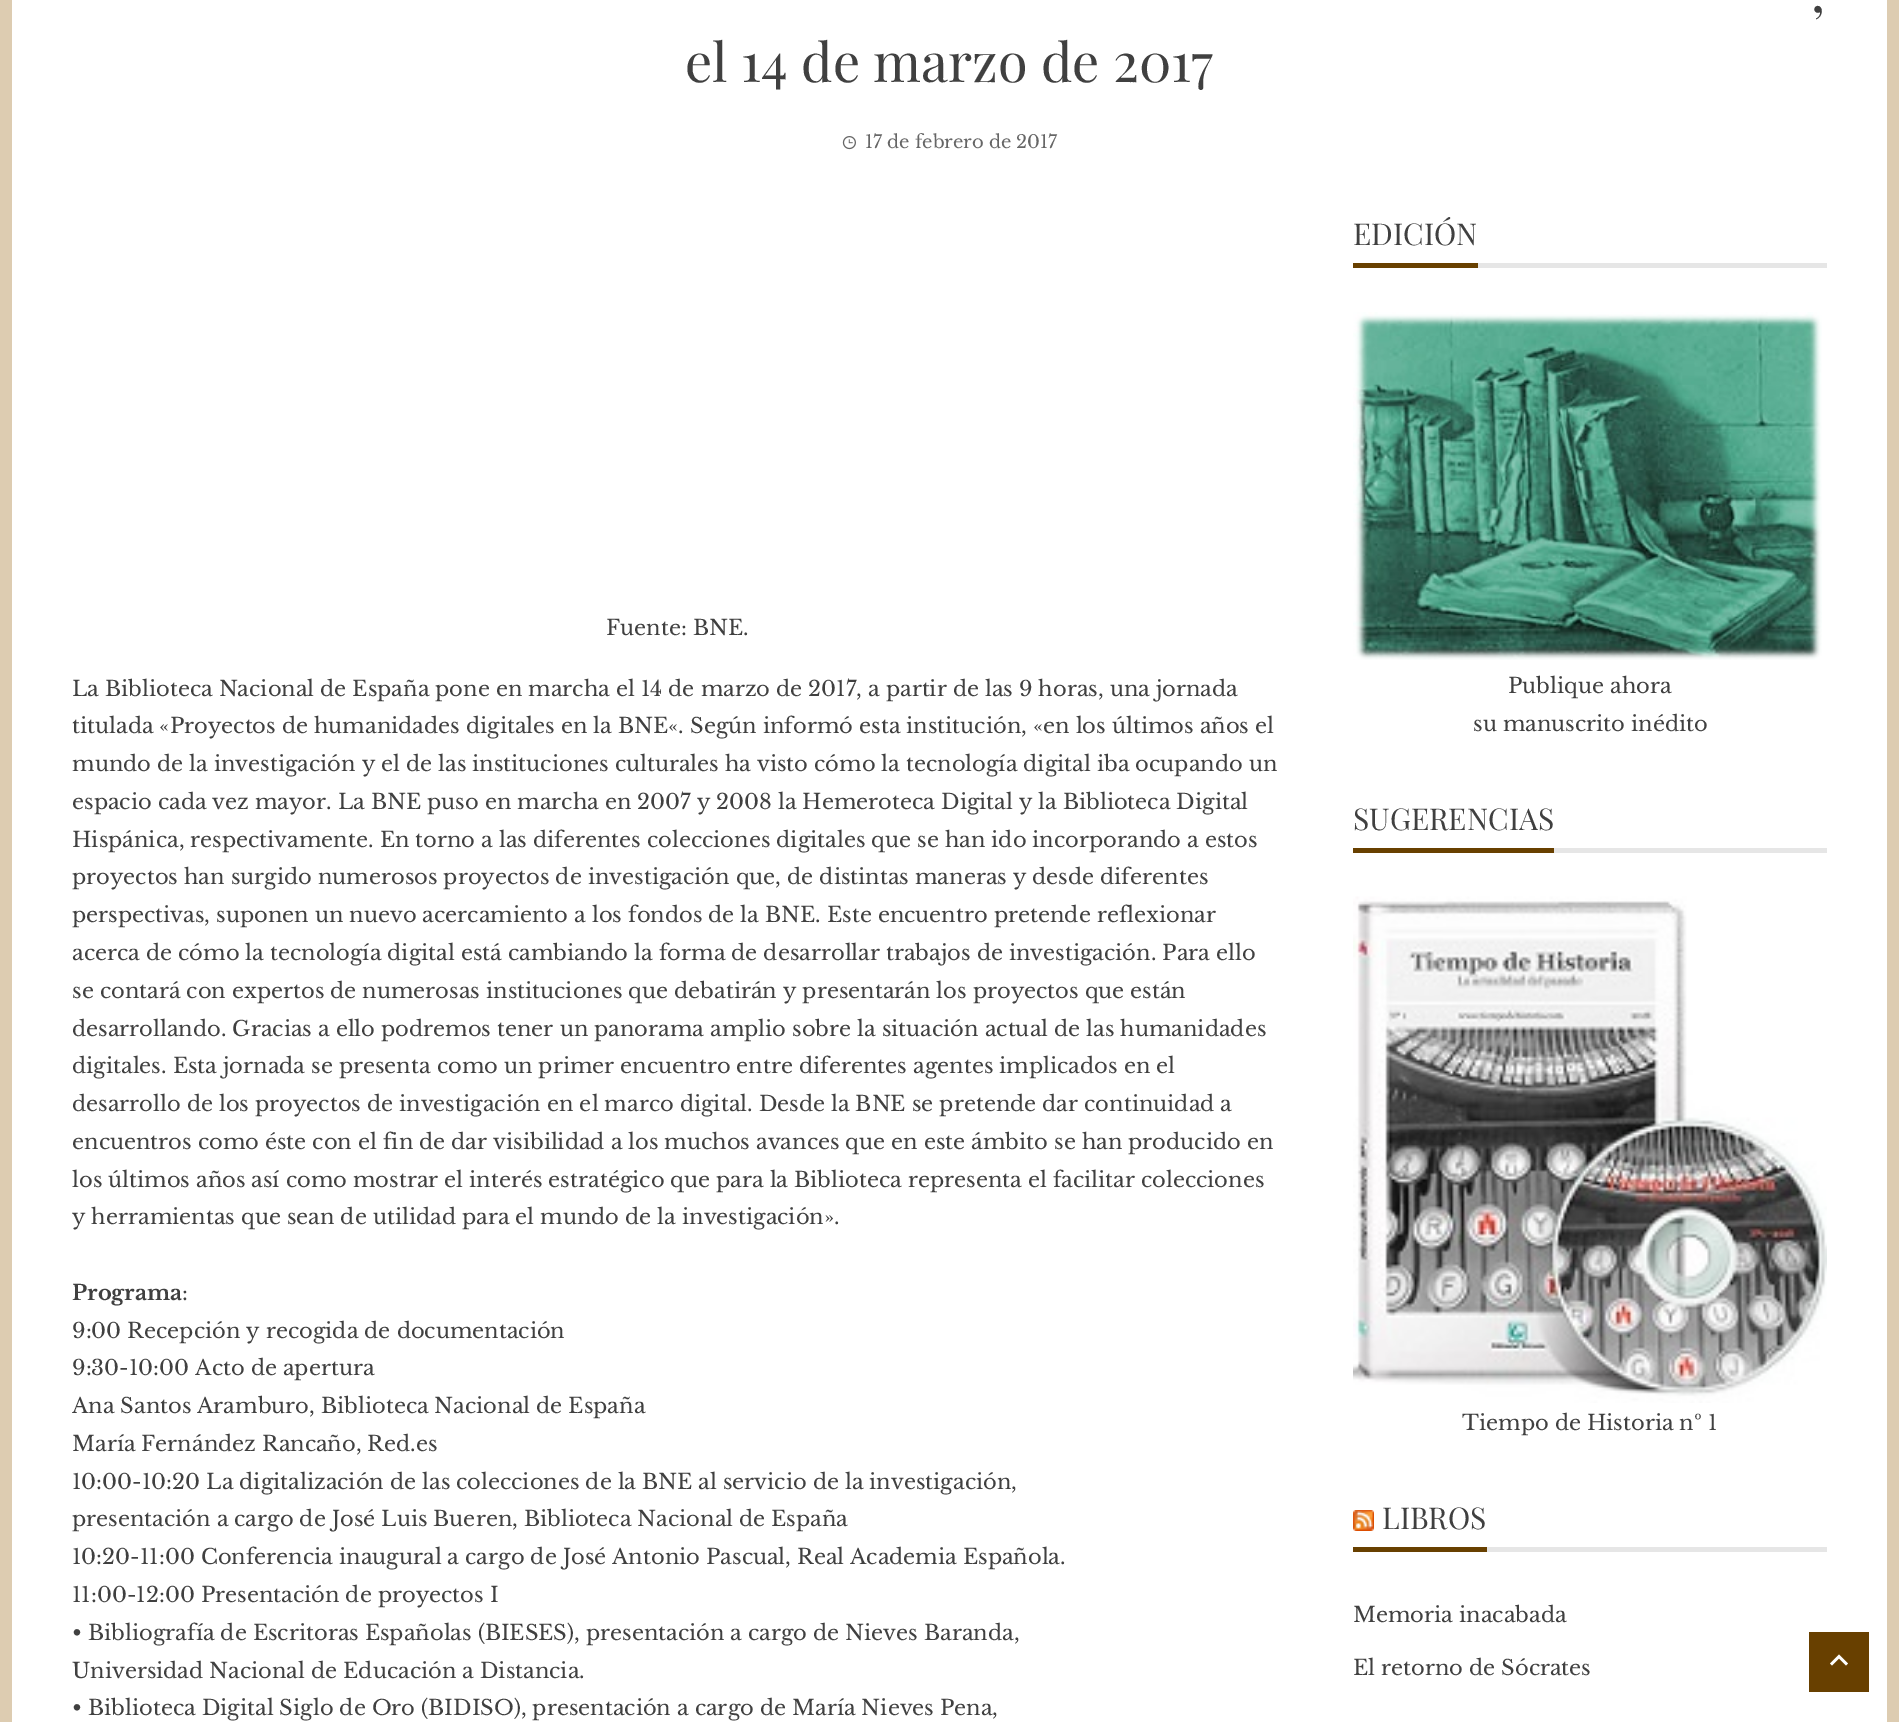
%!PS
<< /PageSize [1899 1722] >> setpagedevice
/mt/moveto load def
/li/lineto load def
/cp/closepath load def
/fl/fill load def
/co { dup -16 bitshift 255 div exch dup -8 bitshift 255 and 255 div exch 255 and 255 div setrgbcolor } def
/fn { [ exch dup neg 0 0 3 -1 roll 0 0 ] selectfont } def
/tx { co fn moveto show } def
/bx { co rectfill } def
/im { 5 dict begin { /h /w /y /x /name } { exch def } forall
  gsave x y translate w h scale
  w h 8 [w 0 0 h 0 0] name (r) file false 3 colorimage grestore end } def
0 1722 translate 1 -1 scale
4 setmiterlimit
0 0 1899 1722 16#DDCCB1 bx
12 0 1875 1722 16#FFFFFF bx
(media/1.raw) 842 136 14 14 im
1478 263 349 5 16#E6E6E6 bx
1353 263 125 5 16#684000 bx
(media/2.raw) 1353 312 469 348 im
1554 848 273 5 16#E6E6E6 bx
1353 848 201 5 16#684000 bx
(media/3.raw) 1353 896 474 507 im
1487 1547 340 5 16#E6E6E6 bx
(media/4.raw) 1353 1510 21 21 im
1353 1547 134 5 16#684000 bx
1809 1632 60 60 16#684000 bx
16#FFFFFF co
1832 1665.5 mt 1839 1658.5 li 1846 1665.5 li 1848 1663.5 li 1839 1654.5 li 1830 1663.5 li cp fl
(,) 1811 12 /PlayfairDisplay-Regular 54 16#404040 tx
(el 14 de marzo de 2017) 685 82 /PlayfairDisplay-Regular 54 16#404040 tx
(17 de febrero de 2017) 865 148 /LibreBaskerville-Regular 18 16#666666 tx
(Fuente: BNE.) 606 635 /LibreBaskerville-Regular 21 16#404040 tx
(La Biblioteca Nacional de España pone en marcha el 14 de marzo de 2017, a partir de las 9 horas, una jornada) 72 696 /LibreBaskerville-Regular 21 16#404040 tx
(titulada «Proyectos de humanidades digitales en la BNE«. Según informó esta institución, «en los últimos años el) 72 733 /LibreBaskerville-Regular 21 16#404040 tx
(mundo de la investigación y el de las instituciones culturales ha visto cómo la tecnología digital iba ocupando un) 72 771 /LibreBaskerville-Regular 21 16#404040 tx
(espacio cada vez mayor. La BNE puso en marcha en 2007 y 2008 la Hemeroteca Digital y la Biblioteca Digital) 72 809 /LibreBaskerville-Regular 21 16#404040 tx
(Hispánica, respectivamente. En torno a las diferentes colecciones digitales que se han ido incorporando a estos) 72 847 /LibreBaskerville-Regular 21 16#404040 tx
(proyectos han surgido numerosos proyectos de investigación que, de distintas maneras y desde diferentes) 72 884 /LibreBaskerville-Regular 21 16#404040 tx
(perspectivas, suponen un nuevo acercamiento a los fondos de la BNE. Este encuentro pretende reflexionar) 72 922 /LibreBaskerville-Regular 21 16#404040 tx
(acerca de cómo la tecnología digital está cambiando la forma de desarrollar trabajos de investigación. Para ello) 72 960 /LibreBaskerville-Regular 21 16#404040 tx
(se contará con expertos de numerosas instituciones que debatirán y presentarán los proyectos que están) 72 998 /LibreBaskerville-Regular 21 16#404040 tx
(desarrollando. Gracias a ello podremos tener un panorama amplio sobre la situación actual de las humanidades) 72 1036 /LibreBaskerville-Regular 21 16#404040 tx
(digitales. Esta jornada se presenta como un primer encuentro entre diferentes agentes implicados en el) 72 1073 /LibreBaskerville-Regular 21 16#404040 tx
(desarrollo de los proyectos de investigación en el marco digital. Desde la BNE se pretende dar continuidad a) 72 1111 /LibreBaskerville-Regular 21 16#404040 tx
(encuentros como éste con el fin de dar visibilidad a los muchos avances que en este ámbito se han producido en) 72 1149 /LibreBaskerville-Regular 21 16#404040 tx
(los últimos años así como mostrar el interés estratégico que para la Biblioteca representa el facilitar colecciones) 72 1187 /LibreBaskerville-Regular 21 16#404040 tx
(y herramientas que sean de utilidad para el mundo de la investigación».) 72 1224 /LibreBaskerville-Regular 21 16#404040 tx
(Programa) 72 1300 /LibreBaskerville-Bold 21 16#404040 tx
(:) 182 1300 /LibreBaskerville-Regular 21 16#404040 tx
(9:00 Recepción y recogida de documentación) 72 1338 /LibreBaskerville-Regular 21 16#404040 tx
(9:30-10:00 Acto de apertura) 72 1375 /LibreBaskerville-Regular 21 16#404040 tx
(Ana Santos Aramburo, Biblioteca Nacional de España) 72 1413 /LibreBaskerville-Regular 21 16#404040 tx
(María Fernández Rancaño, Red.es) 72 1451 /LibreBaskerville-Regular 21 16#404040 tx
(10:00-10:20 La digitalización de las colecciones de la BNE al servicio de la investigación,) 72 1489 /LibreBaskerville-Regular 21 16#404040 tx
(presentación a cargo de José Luis Bueren, Biblioteca Nacional de España) 72 1526 /LibreBaskerville-Regular 21 16#404040 tx
(10:20-11:00 Conferencia inaugural a cargo de José Antonio Pascual, Real Academia Española.) 72 1564 /LibreBaskerville-Regular 21 16#404040 tx
(11:00-12:00 Presentación de proyectos I) 72 1602 /LibreBaskerville-Regular 21 16#404040 tx
(• Bibliografía de Escritoras Españolas \(BIESES\), presentación a cargo de Nieves Baranda,) 72 1640 /LibreBaskerville-Regular 21 16#404040 tx
(Universidad Nacional de Educación a Distancia.) 72 1678 /LibreBaskerville-Regular 21 16#404040 tx
(• Biblioteca Digital Siglo de Oro \(BIDISO\), presentación a cargo de María Nieves Pena,) 72 1715 /LibreBaskerville-Regular 21 16#404040 tx
(EDICIÓN) 1353 245 /PlayfairDisplay-Regular 30 16#404040 tx
(Publique ahora) 1508 693 /LibreBaskerville-Regular 21 16#404040 tx
(su manuscrito inédito) 1473 731 /LibreBaskerville-Regular 21 16#404040 tx
(SUGERENCIAS) 1353 830 /PlayfairDisplay-Regular 30 16#404040 tx
(Tiempo de Historia nº 1) 1462 1430 /LibreBaskerville-Regular 21 16#404040 tx
(LIBROS) 1382 1529 /PlayfairDisplay-Regular 30 16#404040 tx
(Memoria inacabada) 1353 1622 /LibreBaskerville-Regular 21 16#404040 tx
(El retorno de Sócrates) 1353 1675 /LibreBaskerville-Regular 21 16#404040 tx
showpage
